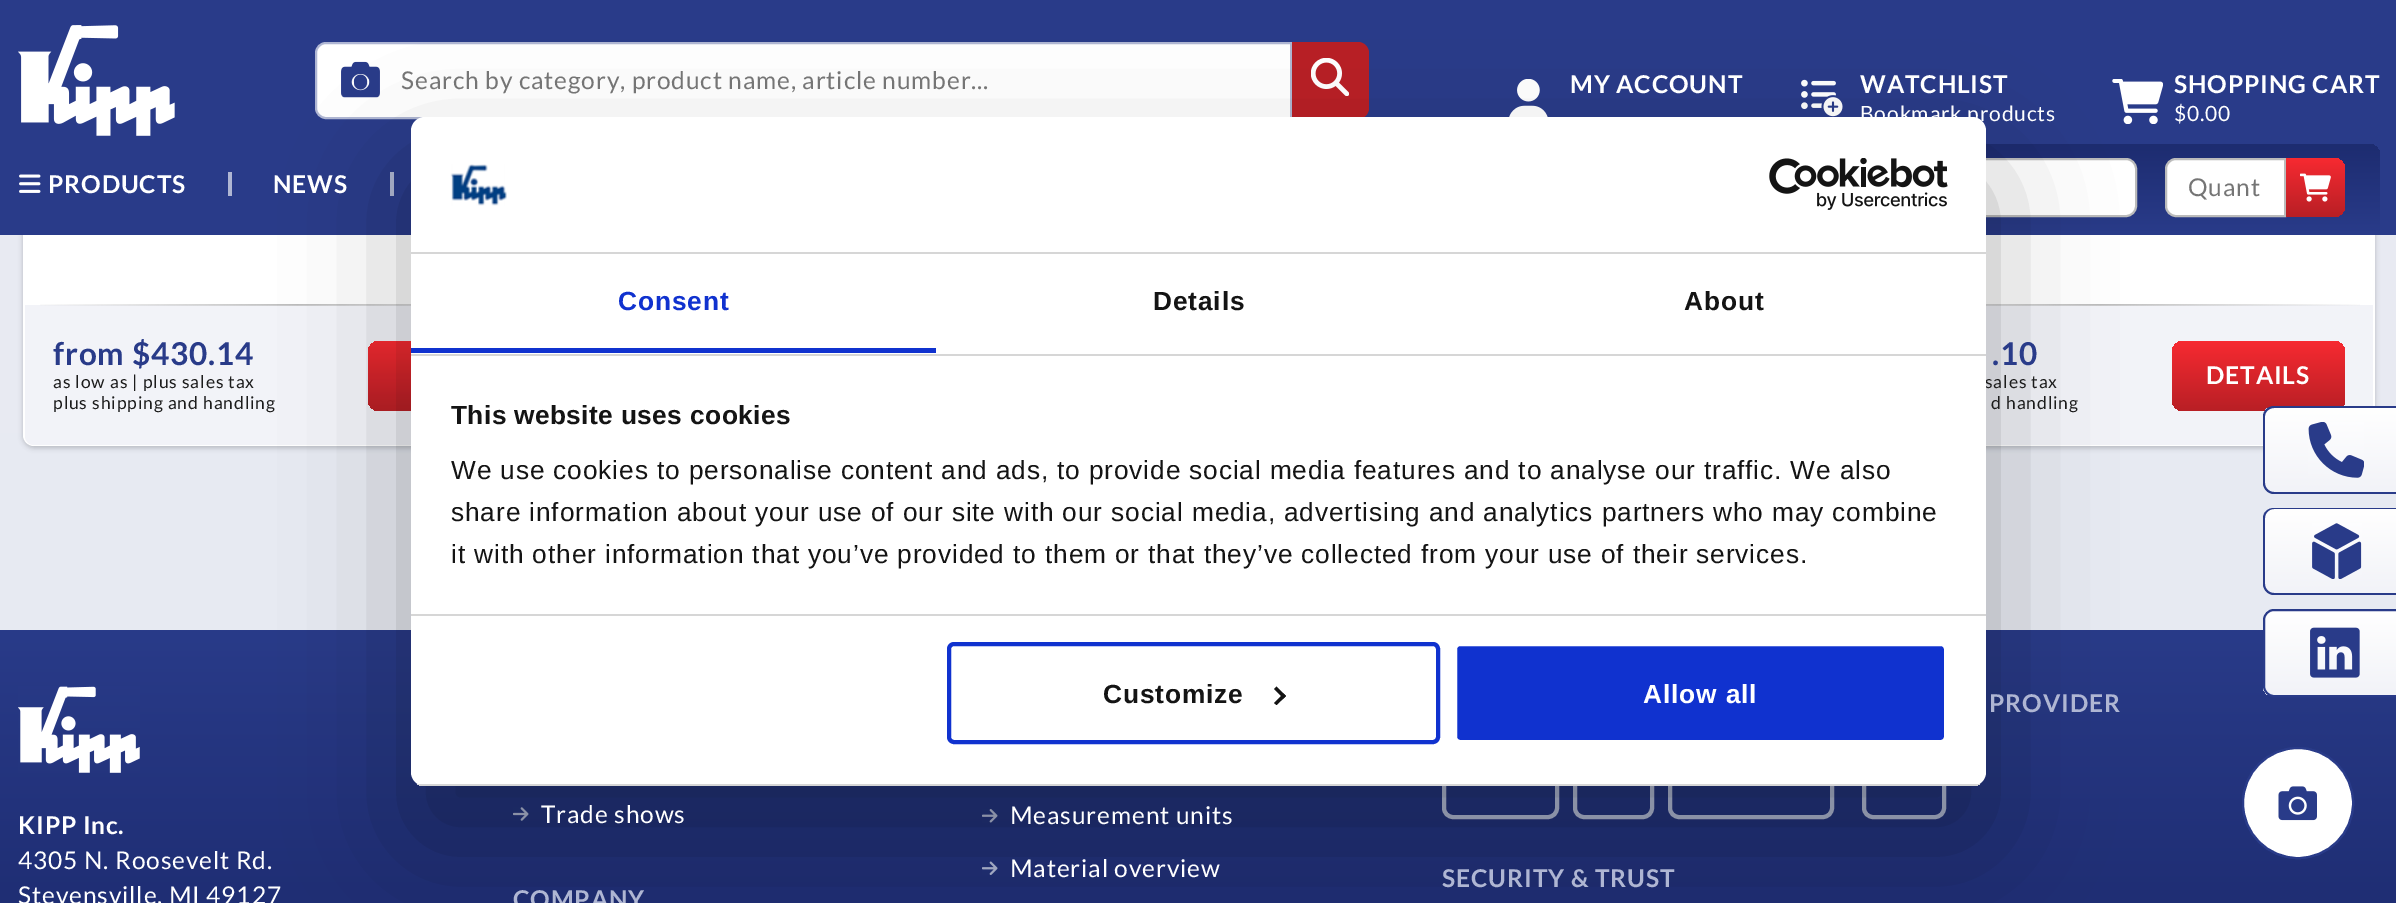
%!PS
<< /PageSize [2396 903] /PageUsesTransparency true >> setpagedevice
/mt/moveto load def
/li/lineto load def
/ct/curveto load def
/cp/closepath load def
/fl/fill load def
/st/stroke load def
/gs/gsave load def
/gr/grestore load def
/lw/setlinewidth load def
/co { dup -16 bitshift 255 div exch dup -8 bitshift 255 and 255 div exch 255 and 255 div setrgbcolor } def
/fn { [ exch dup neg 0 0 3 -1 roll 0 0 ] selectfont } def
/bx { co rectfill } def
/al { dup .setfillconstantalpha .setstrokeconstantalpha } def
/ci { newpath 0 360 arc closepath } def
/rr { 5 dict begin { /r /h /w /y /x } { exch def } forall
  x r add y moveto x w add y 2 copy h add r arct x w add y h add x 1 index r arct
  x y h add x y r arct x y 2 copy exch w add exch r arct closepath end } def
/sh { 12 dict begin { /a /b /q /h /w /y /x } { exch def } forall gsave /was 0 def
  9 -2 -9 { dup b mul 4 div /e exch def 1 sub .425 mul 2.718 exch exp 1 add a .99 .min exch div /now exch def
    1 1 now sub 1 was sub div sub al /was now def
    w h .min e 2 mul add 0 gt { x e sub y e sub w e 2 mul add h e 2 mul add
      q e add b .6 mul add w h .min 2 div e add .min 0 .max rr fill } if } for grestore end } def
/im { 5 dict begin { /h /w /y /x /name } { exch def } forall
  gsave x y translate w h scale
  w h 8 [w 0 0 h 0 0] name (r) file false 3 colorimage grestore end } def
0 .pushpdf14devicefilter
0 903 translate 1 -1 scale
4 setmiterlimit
0 0 2396 903 16#FFFFFF bx
gs 0 235 mt 2396 235 li 2396 630 li 0 630 li cp clip newpath
<< /ShadingType 2 /ColorSpace /DeviceRGB /Coords [1199 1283 1199 -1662] /Extend [true true] /Function << /FunctionType 2 /Domain [0 1] /C0 [.894 .906 .941] /C1 [.949 .953 .973] /N 1 >> >> shfill gr
16#000000 co
23 -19 549 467 11 2.5 .2 sh
16#FFFFFF co
23 -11 549 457 11 rr fl
16#000000 co
1827 -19 548 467 11 2.5 .2 sh
0 0 2396 235 16#293B89 bx
(media/1.raw) 18 25 157 111 im
16#FFFFFF co
326 43 mt 1291 43 li 1291 118 li 326 118 li 320.5 118 316 113.5 316 108 ct 316 53 li 316 47.5 320.5 43 326 43 ct cp gs fl gr
16#AFB6D3 co
2 lw
st
(media/3.raw) 341 65 39 33 im
(media/2.raw) 341 61 39 33 im
16#B81F25 co
1292 42 mt 1358 42 li 1364 42 1369 47 1369 53 ct 1369 108 li 1369 114 1364 119 1358 119 ct 1292 119 li cp fl
(media/4.raw) 1311 58 38 38 im
(media/5.raw) 1509 79 39 38 im
(media/6.raw) 1801 79 42 38 im
(media/7.raw) 2112 79 51 45 im
(media/8.raw) 19 174 22 19 im
228 172 4 24 16#AFB6D3 bx
390 172 4 24 16#AFB6D3 bx
gs 1523 144 mt 2369 144 li 2375 144 2380 149 2380 155 ct 2380 231 li 1512 231 li 1512 155 li 1512 149 1517 144 1523 144 ct cp clip newpath
<< /ShadingType 2 /ColorSpace /DeviceRGB /Coords [1946 231 1946 144] /Extend [true true] /Function << /FunctionType 2 /Domain [0 1] /C0 [.161 .231 .537] /C1 [.114 .173 .439] /N 1 >> >> shfill gr
16#FFFFFF co
1802 159 334 57 10 rr gs fl gr
16#BBBBBB co
st
16#FFFFFF co
2176 159 mt 2285 159 li 2285 216 li 2176 216 li 2170.5 216 2166 211.5 2166 206 ct 2166 169 li 2166 163.5 2170.5 159 2176 159 ct cp gs fl gr
16#BBBBBB co
st
gs 2286 158 mt 2334 158 li 2340 158 2345 163 2345 169 ct 2345 206 li 2345 212 2340 217 2334 217 ct 2286 217 li cp clip newpath
<< /ShadingType 2 /ColorSpace /DeviceRGB /Coords [2315 217 2315 158] /Extend [true true] /Function << /FunctionType 2 /Domain [0 1] /C0 [.722 .122 .145] /C1 [.969 .165 .192] /N 1 >> >> shfill gr
(media/9.raw) 2300 173 31 29 im
16#F2F3F8 co
25 305 mt 571 305 li 571 436 li 571 441 567 445 562 445 ct 34 445 li 29 445 25 441 25 436 ct cp fl
(media/10.raw) 40 304 371 2 im
gs 368 341 175 70 11 rr clip newpath
<< /ShadingType 2 /ColorSpace /DeviceRGB /Coords [455 411 455 341] /Extend [true true] /Function << /FunctionType 2 /Domain [0 1] /C0 [.722 .122 .145] /C1 [.969 .165 .192] /N 1 >> >> shfill gr
1986 235 389 211 16#FFFFFF bx
1986 305 387 140 16#F2F3F8 bx
(media/11.raw) 1986 304 374 2 im
gs 2172 341 173 70 11 rr clip newpath
<< /ShadingType 2 /ColorSpace /DeviceRGB /Coords [2258 411 2258 341] /Extend [true true] /Function << /FunctionType 2 /Domain [0 1] /C0 [.722 .122 .145] /C1 [.969 .165 .192] /N 1 >> >> shfill gr
gs
2263 406 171 88 11 rr clip newpath
gs 2263 408 mt 2396 408 li 2396 492 li 2263 492 li cp clip newpath
<< /ShadingType 2 /ColorSpace /DeviceRGB /Coords [2350 492 2350 408] /Extend [true true] /Function << /FunctionType 2 /Domain [0 1] /C0 [.949 .953 .973] /C1 [1 1 1] /N 1 >> >> shfill gr
gr
16#293B89 co
2274 406 mt 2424 406 li 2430 406 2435 411 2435 416 ct 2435 483 li 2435 489 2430 494 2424 494 ct 2274 494 li 2268 494 2263 489 2263 483 ct 2263 416 li 2263 411 2268 406 2274 406 ct cp 2274 408 mt 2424 408 li 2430 408 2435 412 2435 416 ct 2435 483 li 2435 488 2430 492 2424 492 ct 2274 492 li 2269 492 2265 488 2265 483 ct 2265 416 li 2265 412 2269 408 2274 408 ct cp eofill
(media/12.raw) 2308 422 56 56 im
gs
2263 508 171 87 11 rr clip newpath
gs 2263 509 mt 2396 509 li 2396 593 li 2263 593 li cp clip newpath
<< /ShadingType 2 /ColorSpace /DeviceRGB /Coords [2350 593 2350 509] /Extend [true true] /Function << /FunctionType 2 /Domain [0 1] /C0 [.949 .953 .973] /C1 [1 1 1] /N 1 >> >> shfill gr
gr
2274 508 mt 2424 508 li 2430 508 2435 512 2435 518 ct 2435 584 li 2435 590 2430 595 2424 595 ct 2274 595 li 2268 595 2263 590 2263 584 ct 2263 518 li 2263 512 2268 508 2274 508 ct cp 2274 509 mt 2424 509 li 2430 509 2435 513 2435 518 ct 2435 584 li 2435 589 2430 593 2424 593 ct 2274 593 li 2269 593 2265 589 2265 584 ct 2265 518 li 2265 513 2269 509 2274 509 ct cp eofill
(media/13.raw) 2312 523 50 56 im
gs 0 630 mt 2396 630 li 2396 903 li 0 903 li cp clip newpath
<< /ShadingType 2 /ColorSpace /DeviceRGB /Coords [1199 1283 1199 630] /Extend [true true] /Function << /FunctionType 2 /Domain [0 1] /C0 [.063 .114 .341] /C1 [.161 .231 .537] /N 1 >> >> shfill gr
gs
2263 609 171 88 11 rr clip newpath
gs 2263 611 mt 2396 611 li 2396 695 li 2263 695 li cp clip newpath
<< /ShadingType 2 /ColorSpace /DeviceRGB /Coords [2349 695 2349 611] /Extend [true true] /Function << /FunctionType 2 /Domain [0 1] /C0 [.949 .953 .973] /C1 [1 1 1] /N 1 >> >> shfill gr
gr
2264 610 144 86 10 rr st
(media/14.raw) 2310 627 50 51 im
(media/15.raw) 18 686 122 87 im
(media/16.raw) 513 807 16 14 im
(media/17.raw) 982 809 16 14 im
(media/18.raw) 982 861 16 14 im
16#AFB6D3 co
4 lw
1864 744 80 73 9 rr st
1444 744 113 73 9 rr st
1575 744 77 73 9 rr st
1670 744 162 73 9 rr st
16#293B89 co
2 lw
2298 803 55 ci st
16#000000 co
411 173 1575 669 14 59.5 .3 sh
16#FFFFFF co
2298 803 55 ci gs fl gr
16#293B89 co
st
(media/21.raw) 2278 786 39 35 im
/Lato-Regular 24.5 fn
16#757575 co
401 89 mt .88 0 (Search by category, product name, article number...) ashow
/Lato-Bold 24.5 fn
16#FFFFFF co
1570 93 mt .88 0 (MY ACCOUNT) ashow
1860 93 mt .88 0 (WATCHLIST) ashow
/Lato-Regular 21 fn
1860 121 mt .88 0 (Bookmark products) ashow
/Lato-Bold 24.5 fn
2174 93 mt .88 0 (SHOPPING CART) ashow
/Lato-Regular 21 fn
2174 121 mt .88 0 ($0.00) ashow
/Lato-Bold 24.5 fn
48 193 mt .88 0 (PRODUCTS) ashow
273 193 mt .88 0 (NEWS) ashow
/Lato-Regular 24.5 fn
16#757575 co
2188 196 mt .88 0 (Quant) ashow
/Lato-Bold 31.5 fn
16#293B89 co
53 365 mt .88 0 (from $430.14) ashow
/Lato-Regular 17.5 fn
16#1C1C1C co
53 388 mt .88 0 (as low as | plus sales tax) ashow
53 409 mt .88 0 (plus shipping and handling) ashow
/Lato-Bold 31.5 fn
16#293B89 co
1992 365 mt .88 0 (.10) ashow
/Lato-Regular 17.5 fn
16#1C1C1C co
1985 388 mt .88 0 (sales tax) ashow
1991 409 mt .88 0 (d handling) ashow
/Lato-Bold 24.5 fn
16#FFFFFF co
2206 384 mt .88 0 (DETAILS) ashow
18 834 mt .88 0 (KIPP Inc.) ashow
/Lato-Regular 24.5 fn
18 869 mt .88 0 (4305 N. Roosevelt Rd.) ashow
18 904 mt .88 0 (Stevensville, MI 49127) ashow
541 823 mt .88 0 (Trade shows) ashow
/Lato-Bold 24.5 fn
16#AFB6D3 co
513 908 mt .9 0 (COMPANY) ashow
/Lato-Regular 24.5 fn
16#FFFFFF co
1010 824 mt .88 0 (Measurement units) ashow
1010 877 mt .88 0 (Material overview) ashow
/Lato-Bold 24.5 fn
16#AFB6D3 co
1989 712 mt .9 0 (PROVIDER) ashow
1442 887 mt .9 0 (SECURITY & TRUST) ashow
16#FFFFFF co
411 117 1575 669 14 rr fl
411 252 1575 2 16#D6D6D6 bx
(media/19.raw) 450 164 57 42 im
(media/20.raw) 1769 158 179 52 im
411 354 1575 2 16#D6D6D6 bx
411 348 525 5 16#1032CF bx
/LiberationSans-Bold 26.25 fn
618 310 mt .88 0 (Consent) ashow
16#141414 co
1153 310 mt .88 0 (Details) ashow
1684 310 mt .88 0 (About) ashow
411 614 1575 2 16#D6D6D6 bx
16#141414 co
451 424 mt .4 0 (This website uses cookies) ashow
/LiberationSans-Regular 26.25 fn
451 479 mt .88 0 (We use cookies to personalise content and ads, to provide social media features and to analyse our traffic. We also) ashow
451 521 mt .88 0 (share information about your use of our site with our social media, advertising and analytics partners who may combine) ashow
451 563 mt .88 0 (it with other information that you’ve provided to them or that they’ve collected from your use of their services.) ashow
gs
411 117 1575 669 14 rr clip newpath
411 784 1575 2 16#D6D6D6 bx
gr
16#1032CF co
4 lw
949 644 489 98 5 rr st
/LiberationSans-Bold 26.25 fn
16#141414 co
1103 703 mt .88 0 (Customize) ashow
1276.5 686.5 mt 1286 696 li 1283.5 698.5 li 1274 689 li cp fl
1283.5 693.5 mt 1286 696 li 1276.5 705 li 1274 703 li cp fl
16#1032CF co
1455 644 491 98 5 rr gs fl gr
16#FFFFFF co
st
1643 703 mt .88 0 (Allow all) ashow
.poppdf14devicefilter showpage
